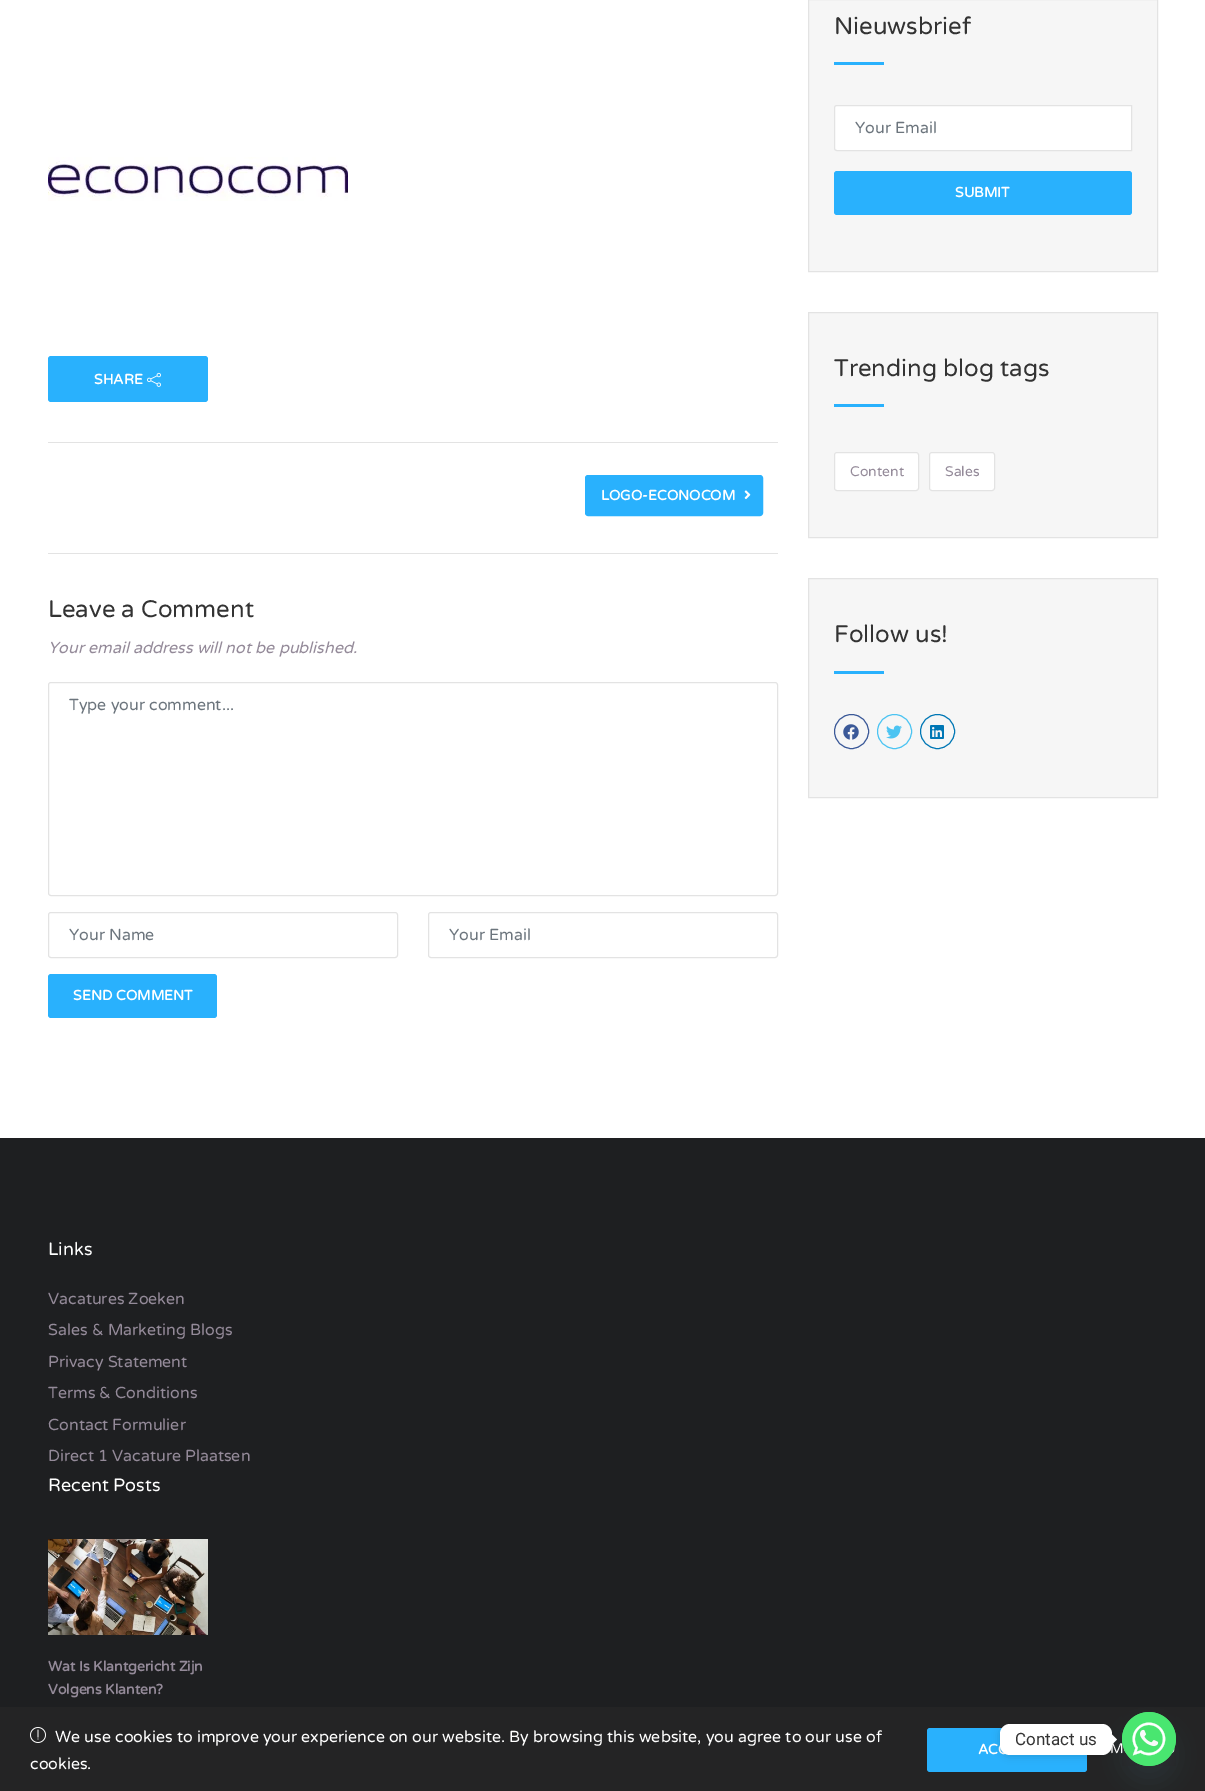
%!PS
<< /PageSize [1205 1791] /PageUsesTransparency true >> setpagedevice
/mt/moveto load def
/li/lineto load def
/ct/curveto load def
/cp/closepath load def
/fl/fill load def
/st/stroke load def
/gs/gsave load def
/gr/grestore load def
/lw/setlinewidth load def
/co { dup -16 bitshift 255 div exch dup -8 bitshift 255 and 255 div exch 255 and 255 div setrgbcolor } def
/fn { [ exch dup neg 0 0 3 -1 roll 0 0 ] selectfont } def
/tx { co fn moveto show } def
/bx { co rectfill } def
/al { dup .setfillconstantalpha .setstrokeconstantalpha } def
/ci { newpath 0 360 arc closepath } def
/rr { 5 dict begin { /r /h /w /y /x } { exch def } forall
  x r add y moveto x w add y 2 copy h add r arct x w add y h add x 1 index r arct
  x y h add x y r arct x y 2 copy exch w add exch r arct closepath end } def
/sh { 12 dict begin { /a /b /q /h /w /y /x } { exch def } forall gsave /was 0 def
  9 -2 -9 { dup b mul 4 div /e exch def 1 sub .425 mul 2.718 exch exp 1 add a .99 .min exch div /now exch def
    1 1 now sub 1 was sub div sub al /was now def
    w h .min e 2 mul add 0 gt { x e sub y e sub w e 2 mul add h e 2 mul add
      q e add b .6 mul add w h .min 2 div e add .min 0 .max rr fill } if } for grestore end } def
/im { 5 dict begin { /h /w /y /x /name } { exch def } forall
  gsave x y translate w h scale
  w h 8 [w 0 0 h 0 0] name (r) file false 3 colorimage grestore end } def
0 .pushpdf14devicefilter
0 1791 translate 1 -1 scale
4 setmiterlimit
0 0 1205 1791 16#FFFFFF bx
(media/1.raw) 48 157 300 44 im
16#29B1FD co
48 356 160 46 3 rr fl
(media/2.raw) 147 372 14 15 im
48 442 730 1 16#E3E3E3 bx
48 553 730 1 16#E3E3E3 bx
16#29B1FD co
586 476 176 39 2 rr gs fl gr
2 lw
st
(media/3.raw) 744 490 7 10 im
16#E3E3E3 co
1 lw
48.5 682.5 729 213 2.5 rr st
48.5 912.5 349 45 2.5 rr st
428.5 912.5 349 45 2.5 rr st
16#29B1FD co
48 974 169 44 3 rr fl
16#F6F6F6 co
808.5 -.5 mt 1157.5 -.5 li 1157.5 271.5 li 808.5 271.5 li cp gs fl gr
16#E3E3E3 co
st
834 62 50 3 16#29B1FD bx
16#FFFFFF co
837 105.5 mt 1131.5 105.5 li 1131.5 150.5 li 837 150.5 li 835.5 150.5 834.5 149.5 834.5 148 ct 834.5 108 li 834.5 106.5 835.5 105.5 837 105.5 ct cp gs fl gr
16#E3E3E3 co
st
16#29B1FD co
834 171 298 44 3 rr fl
16#F6F6F6 co
808.5 312.5 mt 1157.5 312.5 li 1157.5 537.5 li 808.5 537.5 li cp gs fl gr
16#E3E3E3 co
st
834 404 50 3 16#29B1FD bx
16#FFFFFF co
834.5 452.5 84 38 2.5 rr gs fl gr
16#E3E3E3 co
st
16#FFFFFF co
929.5 452.5 65 38 2.5 rr gs fl gr
16#E3E3E3 co
st
16#F6F6F6 co
808.5 578.5 mt 1157.5 578.5 li 1157.5 797.5 li 808.5 797.5 li cp gs fl gr
16#E3E3E3 co
st
834 671 50 3 16#29B1FD bx
16#3B5998 co
851.5 731.5 17 ci st
(media/4.raw) 843 724 16 16 im
16#4CC4F2 co
894.5 731.5 17 ci st
(media/5.raw) 886 725 16 14 im
16#0077B5 co
937.5 731.5 17 ci st
(media/6.raw) 930 725 14 14 im
0 1138 1205 569 16#1E1F21 bx
(media/7.raw) 48 1539 160 96 im
0 1707 1205 84 16#242425 bx
(media/8.raw) 30 1727 16 16 im
16#29B1FD co
927 1728 160 44 3 rr fl
16#49687E co
1122 1728 54 54 27 12 .16 sh
(SHARE) 94 384 /VarelaRound-Bold 14 16#FFFFFF tx
(LOGO-ECONOCOM) 601 500 /VarelaRound-Bold 14 16#FFFFFF tx
(Leave a Comment) 48 617 /VarelaRound-Regular 24 16#333333 tx
(Your email address will not be published.) 48 653 /VarelaRound-Italic 16 16#948A99 tx
(Type your comment...) 69 710 /VarelaRound-Regular 16 16#6C757D tx
(Your Name) 69 940 /VarelaRound-Regular 16 16#6C757D tx
(Your Email) 449 940 /VarelaRound-Regular 16 16#6C757D tx
(SEND COMMENT) 73 1000 /VarelaRound-Bold 14 16#FFFFFF tx
(Nieuwsbrief) 834 34 /VarelaRound-Regular 24 16#333333 tx
(Your Email) 855 133 /VarelaRound-Regular 16 16#6C757D tx
(SUBMIT) 955 197 /VarelaRound-Bold 14 16#FFFFFF tx
(Trending blog tags) 834 376 /VarelaRound-Regular 24 16#333333 tx
(Content) 850 476 /VarelaRound-Regular 14 16#948A99 tx
(Sales) 945 476 /VarelaRound-Regular 14 16#948A99 tx
(Follow us!) 834 642 /VarelaRound-Regular 24 16#333333 tx
(Links) 48 1255 /VarelaRound-Regular 18 16#FFFFFF tx
(Vacatures Zoeken) 48 1304 /VarelaRound-Regular 16 16#948A99 tx
(Sales & Marketing Blogs) 48 1335 /VarelaRound-Regular 16 16#948A99 tx
(Privacy Statement) 48 1367 /VarelaRound-Regular 16 16#948A99 tx
(Terms & Conditions) 48 1398 /VarelaRound-Regular 16 16#948A99 tx
(Contact Formulier) 48 1430 /VarelaRound-Regular 16 16#948A99 tx
(Direct 1 Vacature Plaatsen) 48 1461 /VarelaRound-Regular 16 16#948A99 tx
(Recent Posts) 48 1491 /VarelaRound-Regular 18 16#FFFFFF tx
(Wat Is Klantgericht Zijn) 48 1671 /VarelaRound-Bold 14 16#948A99 tx
(Volgens Klanten?) 48 1694 /VarelaRound-Bold 14 16#948A99 tx
(We use cookies to improve your experience on our website. By browsing this website, you agree to our use of) 55 1742 /VarelaRound-Regular 16 16#FFFFFF tx
(cookies.) 30 1769 /VarelaRound-Regular 16 16#FFFFFF tx
(ACC) 978 1754 /VarelaRound-Bold 14 16#FFFFFF tx
(M) 1110 1753 /VarelaRound-Regular 14 16#FFFFFF tx
(media/9.raw) 1122 1712 54 54 im
16#000000 co
1000 1725 112 31 10 4 .15 sh
16#FFFFFF co
1112 1744.5 mt 1112 1734.5 li 1117 1739.5 li cp fl
1000 1724 112 31 10 rr fl
(Contact us) 1015 1745 /Roboto-Regular 17 16#333333 tx
.poppdf14devicefilter showpage
